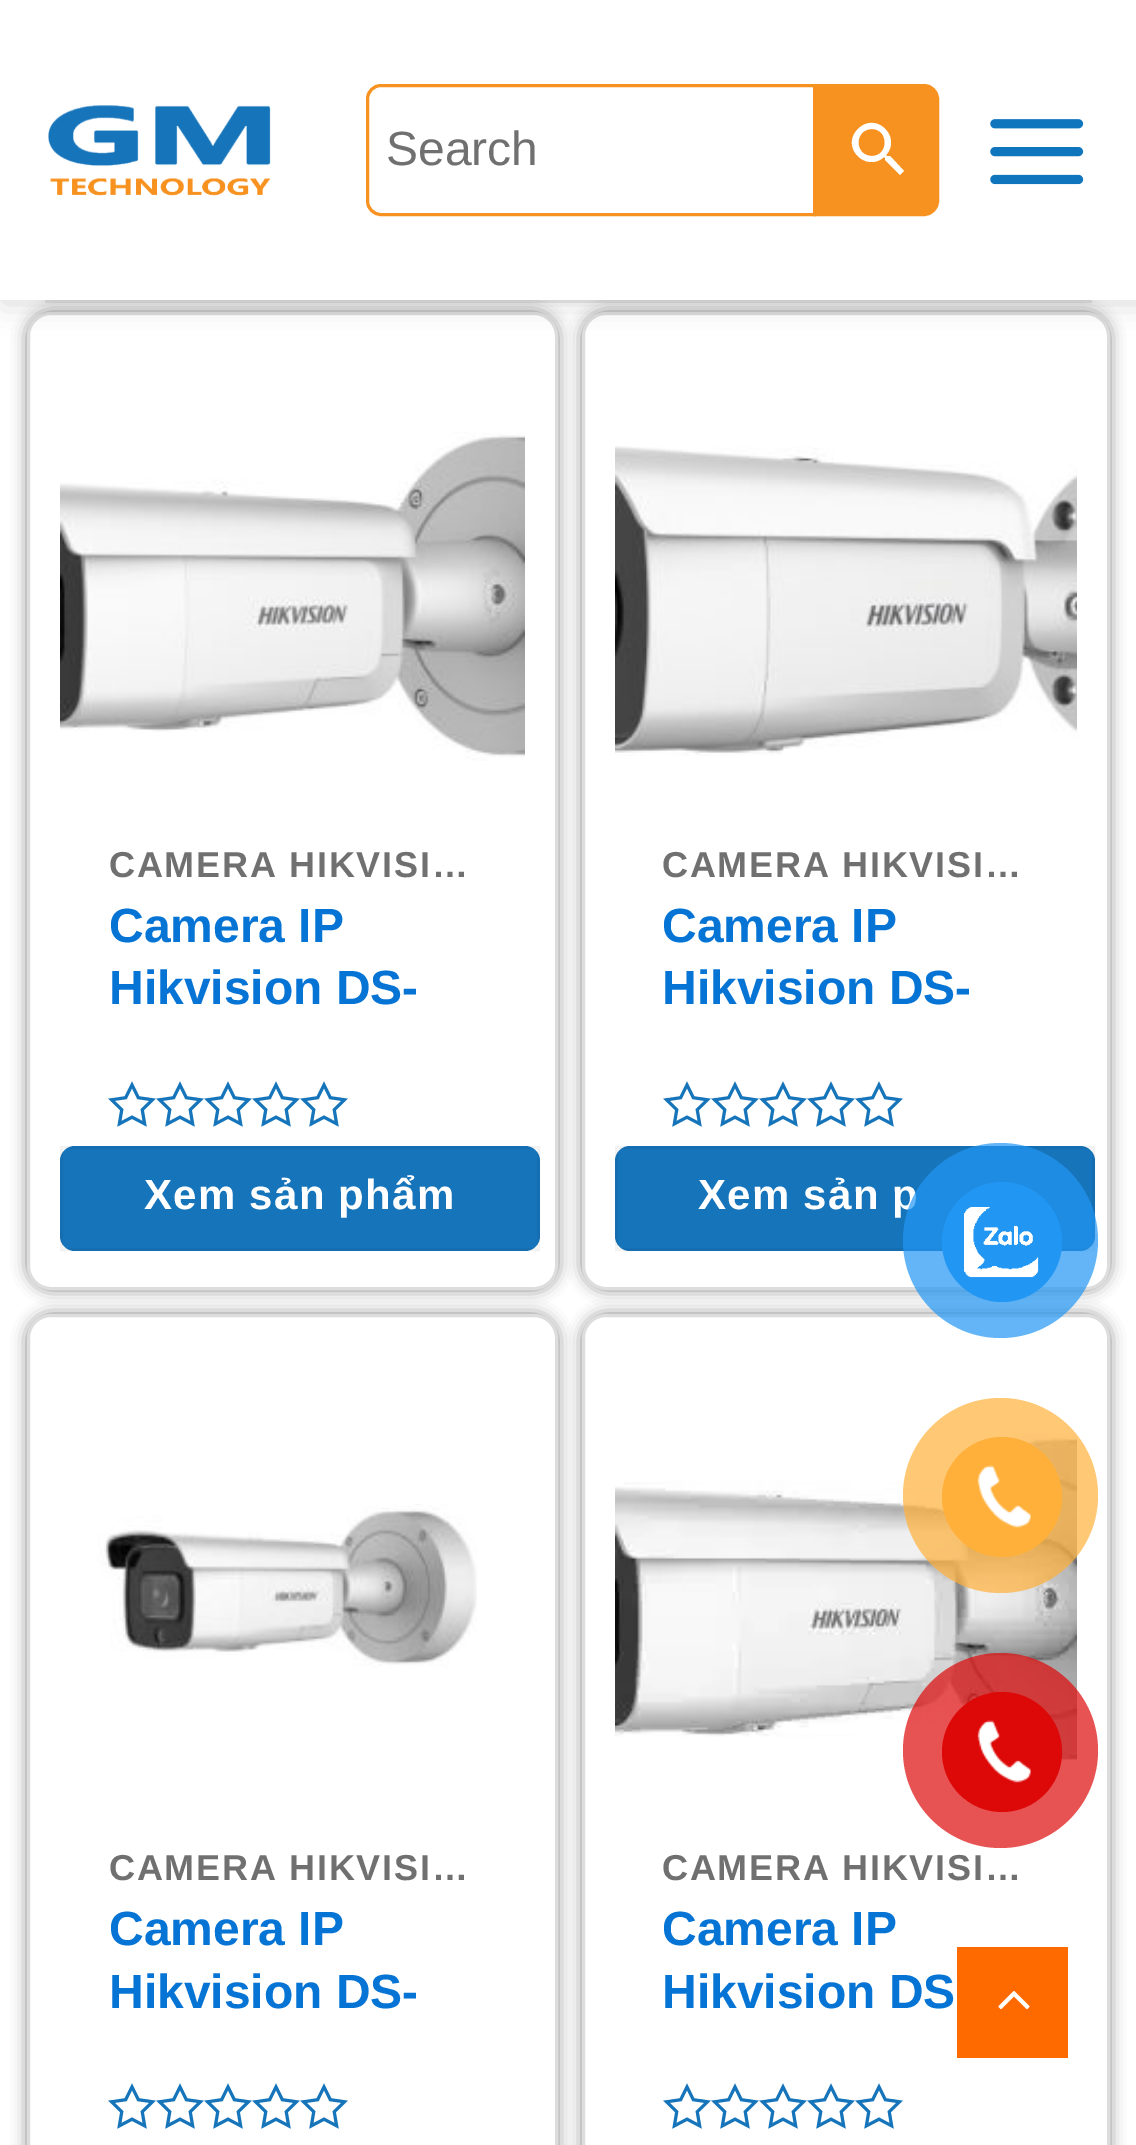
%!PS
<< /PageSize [1136 2145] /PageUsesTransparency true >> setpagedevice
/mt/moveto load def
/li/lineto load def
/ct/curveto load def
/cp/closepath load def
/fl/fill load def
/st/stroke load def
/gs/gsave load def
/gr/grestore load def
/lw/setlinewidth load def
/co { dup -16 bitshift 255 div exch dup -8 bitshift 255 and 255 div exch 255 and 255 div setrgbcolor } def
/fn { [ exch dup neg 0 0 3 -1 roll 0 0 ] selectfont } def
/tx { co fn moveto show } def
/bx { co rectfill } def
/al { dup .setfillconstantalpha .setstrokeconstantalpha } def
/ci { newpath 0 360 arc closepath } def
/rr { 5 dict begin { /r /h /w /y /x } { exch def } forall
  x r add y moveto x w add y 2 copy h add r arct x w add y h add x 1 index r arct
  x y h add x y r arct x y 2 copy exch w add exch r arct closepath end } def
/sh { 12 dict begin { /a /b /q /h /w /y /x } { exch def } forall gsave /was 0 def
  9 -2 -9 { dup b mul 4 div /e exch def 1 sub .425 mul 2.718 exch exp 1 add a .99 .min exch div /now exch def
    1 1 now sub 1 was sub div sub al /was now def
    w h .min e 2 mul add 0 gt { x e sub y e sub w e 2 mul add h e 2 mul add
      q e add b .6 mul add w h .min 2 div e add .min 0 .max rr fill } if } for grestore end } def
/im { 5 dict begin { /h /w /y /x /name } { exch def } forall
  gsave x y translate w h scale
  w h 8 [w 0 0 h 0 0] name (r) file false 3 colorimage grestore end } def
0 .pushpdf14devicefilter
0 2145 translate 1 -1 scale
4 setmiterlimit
0 0 1136 2145 16#FFFFFF bx
gs
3 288 mt 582 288 li 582 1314 li 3 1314 li cp 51 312 mt 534 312 li 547.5 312 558 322.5 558 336 ct 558 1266 li 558 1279.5 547.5 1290 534 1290 ct 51 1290 li 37.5 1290 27 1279.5 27 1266 ct 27 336 li 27 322.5 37.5 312 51 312 ct cp eoclip newpath
16#888888 co
27 312 531 978 24 7.5 1 sh
gr
16#DDDDDD co
3 lw
28.5 313.5 528 975 22.5 rr st
gs
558 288 mt 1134 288 li 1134 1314 li 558 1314 li cp 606 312 mt 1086 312 li 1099.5 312 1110 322.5 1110 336 ct 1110 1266 li 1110 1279.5 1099.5 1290 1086 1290 ct 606 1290 li 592.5 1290 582 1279.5 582 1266 ct 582 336 li 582 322.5 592.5 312 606 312 ct cp eoclip newpath
16#888888 co
582 312 528 978 24 7.5 1 sh
gr
583.5 313.5 525 975 22.5 rr st
16#000000 co
3 3 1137 300 0 15 .15 sh
16#888888 co
27 -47 531 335 24 7.5 1 sh
582 -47 528 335 24 7.5 1 sh
0 0 1136 300 16#FFFFFF bx
(media/1.raw) 48 105 223 91 im
16#F79220 co
814.5 85.5 mt 924 85.5 li 931.5 85.5 937.5 91.5 937.5 99 ct 937.5 201 li 937.5 208.5 931.5 214.5 924 214.5 ct 814.5 214.5 li cp gs fl gr
st
16#FFFFFF co
381 85.5 mt 814.5 85.5 li 814.5 214.5 li 381 214.5 li 373.5 214.5 367.5 208.5 367.5 201 ct 367.5 99 li 367.5 91.5 373.5 85.5 381 85.5 ct cp gs fl gr
16#F79220 co
st
16#FFFFFF co
890 156 mt 887 156 li 886 155 li 902 137 876 111 858 129 ct 840 147 866 173 884 157 ct 885 158 li 885 160 li 900 175 li 904 171 li cp 872 156 mt 854 156 854 129 872 129 ct 889 129 889 156 872 156 ct cp fl
(media/2.raw) 990 119 94 66 im
0.1 al
45 300 1047 3 16#333333 bx
1 al
(media/3.raw) 60 432 465 329 im
(media/4.raw) 108 1081 240 46 im
16#1674BA co
60 1146 480 105 15 rr fl
0.05 al
16#000000 co
61.5 1147.5 477 102 rectstroke
1 al
(media/5.raw) 615 446 462 310 im
(media/4.raw) 663 1081 240 46 im
16#1674BA co
615 1146 480 105 15 rr fl
0.05 al
16#000000 co
616.5 1147.5 477 102 rectstroke
gs
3 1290 mt 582 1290 li 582 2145 li 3 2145 li cp 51 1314 mt 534 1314 li 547.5 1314 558 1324.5 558 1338 ct 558 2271 li 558 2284.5 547.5 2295 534 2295 ct 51 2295 li 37.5 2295 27 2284.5 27 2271 ct 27 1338 li 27 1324.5 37.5 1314 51 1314 ct cp eoclip newpath
1 al
16#888888 co
27 1314 531 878 24 7.5 1 sh
gr
1 al
16#DDDDDD co
28.5 1315.5 528 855 22.5 rr st
(media/6.raw) 97 1504 380 164 im
(media/4.raw) 108 2083 240 46 im
gs
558 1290 mt 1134 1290 li 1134 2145 li 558 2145 li cp 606 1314 mt 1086 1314 li 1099.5 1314 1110 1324.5 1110 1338 ct 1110 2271 li 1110 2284.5 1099.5 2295 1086 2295 ct 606 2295 li 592.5 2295 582 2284.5 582 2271 ct 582 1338 li 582 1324.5 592.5 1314 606 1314 ct cp eoclip newpath
16#888888 co
582 1314 528 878 24 7.5 1 sh
gr
583.5 1315.5 525 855 22.5 rr st
(media/7.raw) 615 1433 462 328 im
(media/4.raw) 663 2083 240 46 im
957 1947 111 111 16#FF6A00 bx
(media/8.raw) 998 1991 32 19 im
0.7 al
16#FFB03A co
1000.5 1495.5 97.5 ci fl
1 al
1002 1497 60 ci fl
(media/10.raw) 977 1465 54 63 im
0.7 al
16#DD0808 co
1000.5 1750.5 97.5 ci fl
1 al
1002 1752 60 ci fl
(media/11.raw) 977 1720 54 63 im
(Search) 386 165 /LiberationSans-Regular 48 16#707070 tx
/LiberationSans-Bold 36 fn
109 877 mt 1.75 0 (CAMERA HIKVISI…) ashow
(Camera IP) 109 942 /LiberationSans-Bold 48 16#0674D4 tx
(Hikvision DS-) 109 1004 /LiberationSans-Bold 48 16#0674D4 tx
/LiberationSans-Bold 42 fn
16#FFFFFF co
144 1209 mt 1.25 0 (Xem sản phẩm) ashow
/LiberationSans-Bold 36 fn
16#707070 co
662 877 mt 1.75 0 (CAMERA HIKVISI…) ashow
(Camera IP) 662 942 /LiberationSans-Bold 48 16#0674D4 tx
(Hikvision DS-) 662 1004 /LiberationSans-Bold 48 16#0674D4 tx
/LiberationSans-Bold 42 fn
16#FFFFFF co
698 1209 mt 1.25 0 (Xem sản p) ashow
/LiberationSans-Bold 36 fn
16#707070 co
109 1880 mt 1.75 0 (CAMERA HIKVISI…) ashow
(Camera IP) 109 1945 /LiberationSans-Bold 48 16#0674D4 tx
(Hikvision DS-) 109 2008 /LiberationSans-Bold 48 16#0674D4 tx
/LiberationSans-Bold 36 fn
16#707070 co
662 1880 mt 1.75 0 (CAMERA HIKVISI…) ashow
(Camera IP) 662 1945 /LiberationSans-Bold 48 16#0674D4 tx
(Hikvision DS) 662 2008 /LiberationSans-Bold 48 16#0674D4 tx
0.7 al
16#2196F3 co
1000.5 1240.5 97.5 ci fl
1 al
1002 1242 60 ci fl
(media/9.raw) 964 1207 75 71 im
.poppdf14devicefilter showpage
